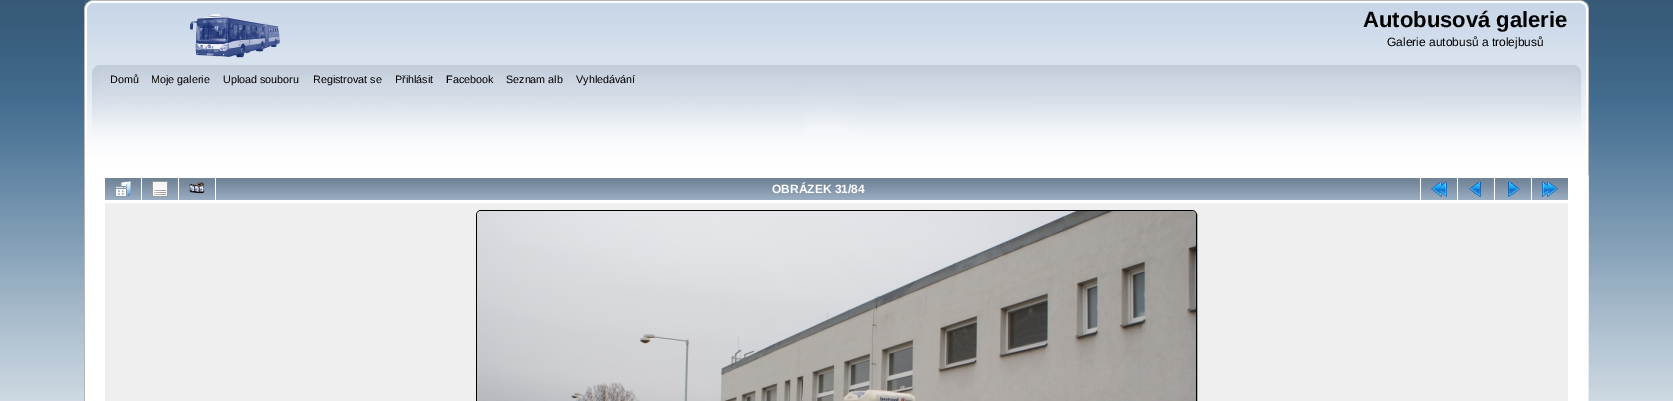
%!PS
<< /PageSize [1673 401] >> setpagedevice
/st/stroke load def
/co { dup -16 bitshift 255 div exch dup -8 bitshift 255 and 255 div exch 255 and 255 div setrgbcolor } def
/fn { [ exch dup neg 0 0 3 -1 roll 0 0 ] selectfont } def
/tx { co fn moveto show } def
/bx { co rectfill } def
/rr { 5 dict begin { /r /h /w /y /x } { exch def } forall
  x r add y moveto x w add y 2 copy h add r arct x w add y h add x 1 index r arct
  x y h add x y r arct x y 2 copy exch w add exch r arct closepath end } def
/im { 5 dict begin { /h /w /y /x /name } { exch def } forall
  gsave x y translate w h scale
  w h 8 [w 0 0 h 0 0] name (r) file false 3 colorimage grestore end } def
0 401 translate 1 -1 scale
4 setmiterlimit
0 0 1673 401 16#FFFFFF bx
(media/1.raw) 0 0 1673 401 im
(media/2.raw) 84 0 1497 65 im
(media/3.raw) 1581 0 8 65 im
(media/4.raw) 189 13 91 45 im
(media/5.raw) 84 65 1491 110 im
(media/6.raw) 1575 65 14 110 im
85 175 1503 226 16#FFFFFF bx
84 175 1 226 16#B7B7B7 bx
1588 175 1 226 16#EBEBEB bx
(media/7.raw) 105 178 36 22 im
(media/8.raw) 115 181 16 16 im
(media/7.raw) 142 178 36 22 im
(media/9.raw) 152 181 16 16 im
(media/7.raw) 179 178 36 22 im
(media/10.raw) 189 182 16 12 im
(media/11.raw) 216 178 1204 22 im
(media/7.raw) 1421 178 36 22 im
(media/12.raw) 1431 181 16 16 im
(media/7.raw) 1458 178 36 22 im
(media/13.raw) 1469 181 12 16 im
(media/7.raw) 1495 178 36 22 im
(media/14.raw) 1508 181 12 16 im
(media/7.raw) 1532 178 36 22 im
(media/15.raw) 1542 181 16 16 im
105 203 1463 198 16#EFEFEF bx
16#000000 co
476.5 210.5 720 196 4.5 rr st
(media/16.raw) 477 211 719 190 im
(Autobusová galerie) 1363 27 /LiberationSans-Bold 22 16#000000 tx
(Galerie autobusů a trolejbusů) 1387 46 /LiberationSans-Regular 12 16#000000 tx
(Domů) 110 83 /LiberationSans-Regular 10.75 16#000000 tx
(Moje galerie) 151 83 /LiberationSans-Regular 10.75 16#000000 tx
(Upload souboru) 223 83 /LiberationSans-Regular 10.75 16#000000 tx
(Registrovat se) 313 83 /LiberationSans-Regular 10.75 16#000000 tx
(Přihlásit) 395 83 /LiberationSans-Regular 10.75 16#000000 tx
(Facebook) 446 83 /LiberationSans-Regular 10.75 16#000000 tx
(Seznam alb) 506 83 /LiberationSans-Regular 10.75 16#000000 tx
(Vyhledávání) 576 83 /LiberationSans-Regular 10.75 16#000000 tx
(OBRÁZEK 31/84) 772 193 /LiberationSans-Bold 12 16#FFFFFF tx
showpage
